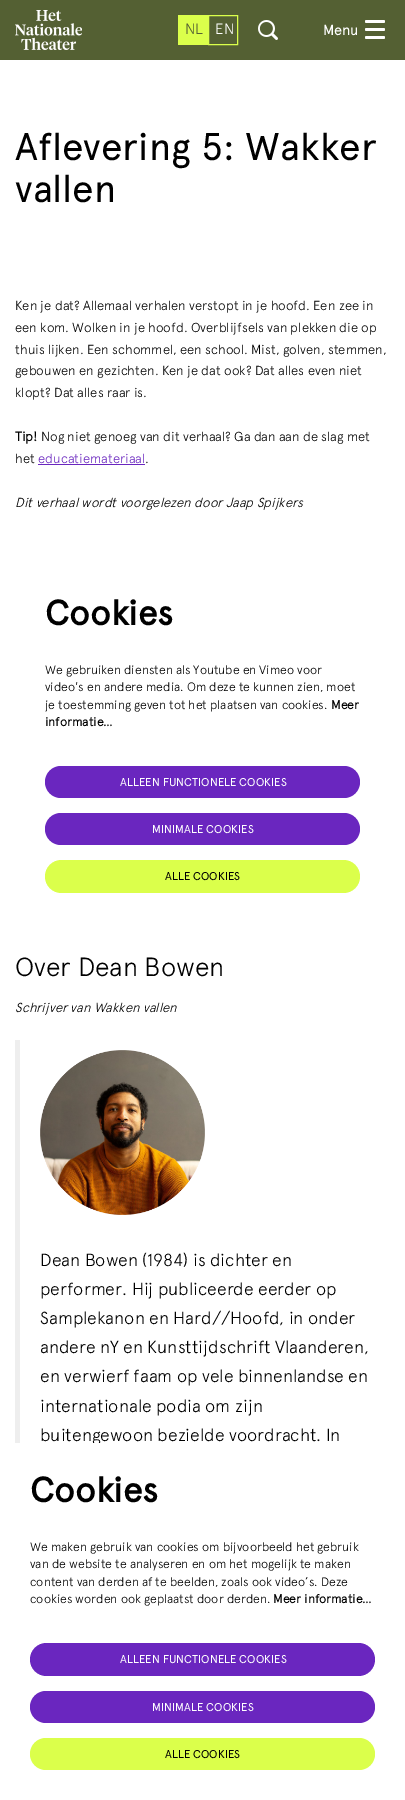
%!PS
<< /PageSize [405 1800] >> setpagedevice
/fl/fill load def
/co { dup -16 bitshift 255 div exch dup -8 bitshift 255 and 255 div exch 255 and 255 div setrgbcolor } def
/fn { [ exch dup neg 0 0 3 -1 roll 0 0 ] selectfont } def
/tx { co fn moveto show } def
/bx { co rectfill } def
/rr { 5 dict begin { /r /h /w /y /x } { exch def } forall
  x r add y moveto x w add y 2 copy h add r arct x w add y h add x 1 index r arct
  x y h add x y r arct x y 2 copy exch w add exch r arct closepath end } def
/im { 5 dict begin { /h /w /y /x /name } { exch def } forall
  gsave x y translate w h scale
  w h 8 [w 0 0 h 0 0] name (r) file false 3 colorimage grestore end } def
0 1800 translate 1 -1 scale
4 setmiterlimit
0 0 405 1800 16#FFFFFF bx
0 0 405 60 16#546033 bx
(media/1.raw) 15 10 67 40 im
178 15 30 30 16#DBFF4B bx
208.5 15.5 29 29 rectstroke
(media/2.raw) 258 20 20 20 im
16#FFFFFF co
365 20 20 3 1.5 rr fl
365 28 20 3 1.5 rr fl
365 36 20 3 1.5 rr fl
38 464 107 1 16#6A26BF bx
45 766 315 32 16 rr fl
45 813 315 32 16 rr fl
16#DBFF4B co
45 860 315 33 16.5 rr fl
15 1040 5 403 16#EEEEEE bx
(media/3.raw) 40 1050 165 165 im
16#6A26BF co
30 1643 345 33 16.5 rr fl
30 1691 345 32 16 rr fl
16#DBFF4B co
30 1738 345 32 16 rr fl
(NL) 185 34 /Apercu-Light 15 16#546033 tx
(EN) 215 34 /Apercu-Light 15 16#FFFFFF tx
(Menu) 323 35 /Apercu-Bold 14 16#FFFFFF tx
(Aflevering 5: Wakker) 15 160 /Apercu-Regular 38.5 16#000000 tx
(vallen) 15 202 /Apercu-Regular 38.5 16#000000 tx
(Ken je dat? Allemaal verhalen verstopt in je hoofd. Een zee in) 15 310 /Apercu-Light 13.1 16#000000 tx
(een kom. Wolken in je hoofd. Overblijfsels van plekken die op) 15 332 /Apercu-Light 13.1 16#000000 tx
(thuis lijken. Een schommel, een school. Mist, golven, stemmen,) 15 354 /Apercu-Light 13.1 16#000000 tx
(gebouwen en gezichten. Ken je dat ook? Dat alles even niet) 15 375 /Apercu-Light 13.1 16#000000 tx
(klopt? Dat alles raar is.) 15 397 /Apercu-Light 13.1 16#000000 tx
(Tip!) 15 441 /Apercu-Bold 13.1 16#000000 tx
(Nog niet genoeg van dit verhaal? Ga dan aan de slag met) 41 441 /Apercu-Light 13.1 16#000000 tx
(het) 15 463 /Apercu-Light 13.1 16#000000 tx
(educatiemateriaal) 38 463 /Apercu-Light 13.1 16#6A26BF tx
(.) 145 463 /Apercu-Light 13.1 16#000000 tx
(Dit verhaal wordt voorgelezen door Jaap Spijkers) 15 507 /Apercu-LightItalic 13.1 16#000000 tx
(Cookies) 45 625 /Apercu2-Bold 35 16#000000 tx
(We gebruiken diensten als Youtube en Vimeo voor) 45 674 /Apercu-Light 12.25 16#000000 tx
(video's en andere media. Om deze te kunnen zien, moet) 45 691 /Apercu-Light 12.25 16#000000 tx
(je toestemming geven tot het plaatsen van cookies.) 45 709 /Apercu-Light 12.25 16#000000 tx
(Meer) 331 709 /Apercu-Bold 12.25 16#000000 tx
(informatie…) 45 726 /Apercu-Bold 12.25 16#000000 tx
(ALLEEN FUNCTIONELE COOKIES) 120 786 /Apercu-Regular 11.4 16#FFFFFF tx
(MINIMALE COOKIES) 152 833 /Apercu-Regular 11.4 16#FFFFFF tx
(ALLE COOKIES) 165 880 /Apercu-Regular 11.4 16#000000 tx
(Over Dean Bowen) 15 976 /Apercu-Light 26.25 16#000000 tx
(Schrijver van Wakken vallen) 15 1012 /Apercu-LightItalic 13.1 16#000000 tx
(Dean Bowen \(1984\) is dichter en) 40 1266 /Apercu-Light 17.5 16#000000 tx
(performer. Hij publiceerde eerder op) 40 1295 /Apercu-Light 17.5 16#000000 tx
(Samplekanon en Hard//Hoofd, in onder) 40 1324 /Apercu-Light 17.5 16#000000 tx
(andere nY en Kunsttijdschrift Vlaanderen,) 40 1353 /Apercu-Light 17.5 16#000000 tx
(en verwierf faam op vele binnenlandse en) 40 1382 /Apercu-Light 17.5 16#000000 tx
(internationale podia om zijn) 40 1412 /Apercu-Light 17.5 16#000000 tx
(buitengewoon bezielde voordracht. In) 40 1441 /Apercu-Light 17.5 16#000000 tx
92 1443 8 2 16#FFFFFF bx
(Cookies) 30 1502 /Apercu2-Bold 35 16#000000 tx
(We maken gebruik van cookies om bijvoorbeeld het gebruik) 30 1551 /Apercu-Light 12.25 16#000000 tx
(van de website te analyseren en om het mogelijk te maken) 30 1568 /Apercu-Light 12.25 16#000000 tx
(content van derden af te beelden, zoals ook video’s. Deze) 30 1586 /Apercu-Light 12.25 16#000000 tx
(cookies worden ook geplaatst door derden.) 30 1603 /Apercu-Light 12.25 16#000000 tx
(Meer informatie…) 273 1603 /Apercu-Bold 12.25 16#000000 tx
(ALLEEN FUNCTIONELE COOKIES) 120 1663 /Apercu-Regular 11.4 16#FFFFFF tx
(MINIMALE COOKIES) 152 1711 /Apercu-Regular 11.4 16#FFFFFF tx
(ALLE COOKIES) 165 1758 /Apercu-Regular 11.4 16#000000 tx
showpage
